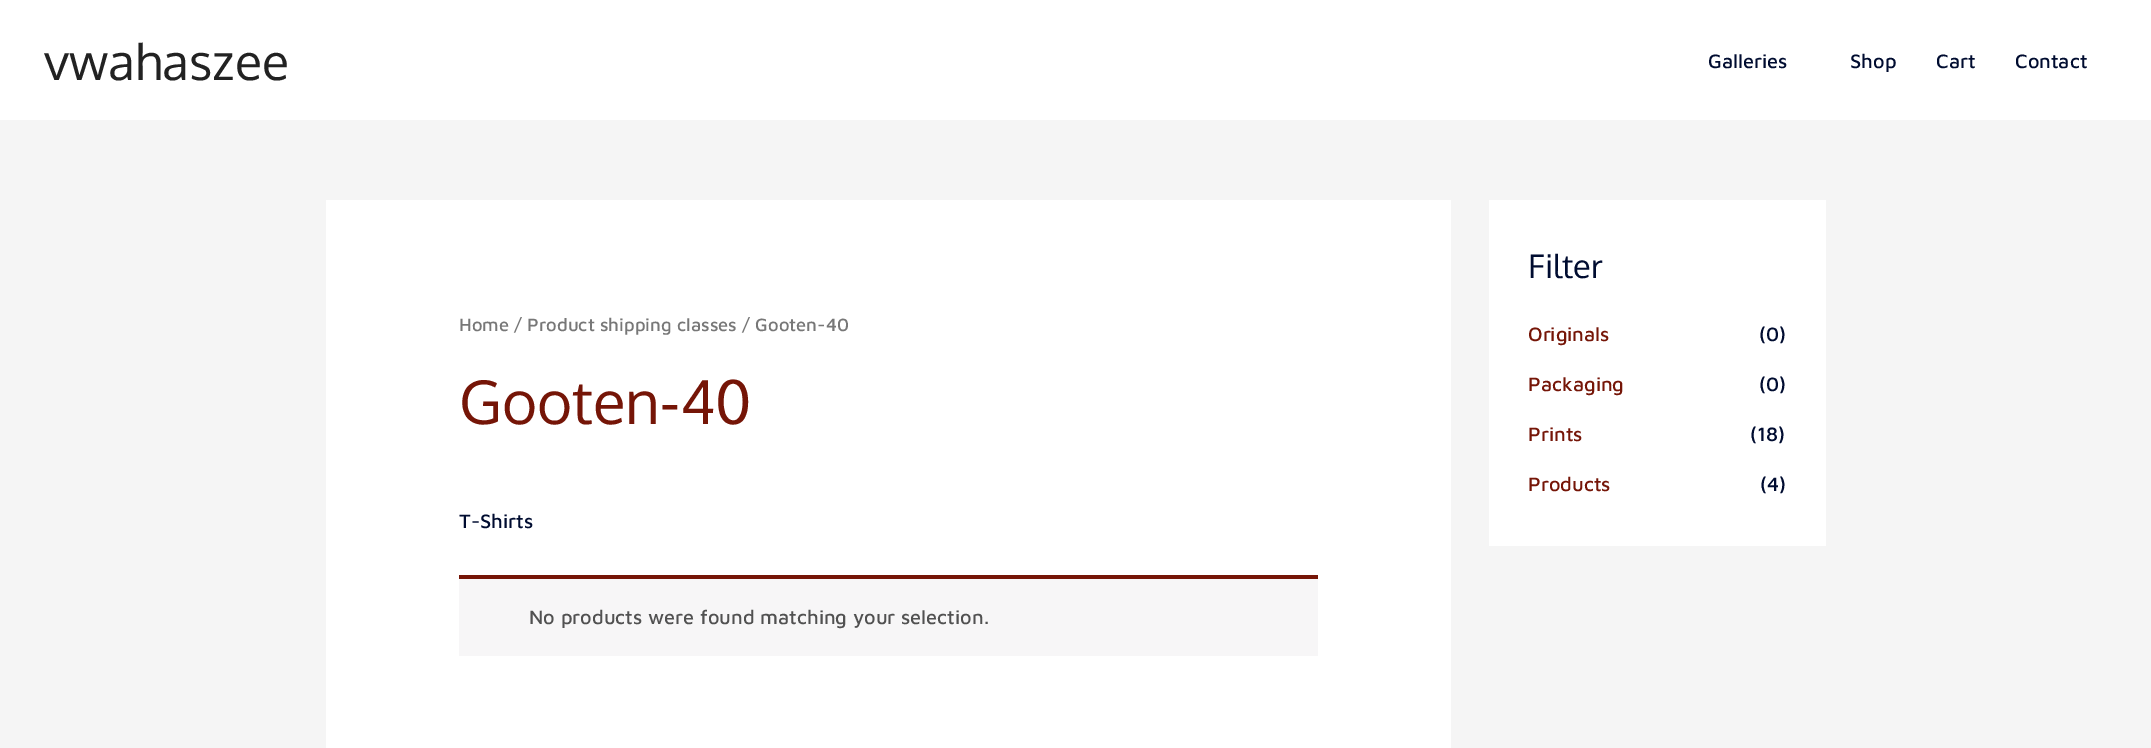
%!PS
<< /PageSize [2151 748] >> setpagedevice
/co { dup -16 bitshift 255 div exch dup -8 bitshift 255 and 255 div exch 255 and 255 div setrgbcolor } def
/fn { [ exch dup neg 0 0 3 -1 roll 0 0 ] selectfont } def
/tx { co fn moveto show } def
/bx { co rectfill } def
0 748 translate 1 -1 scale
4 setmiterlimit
0 0 2151 748 16#F5F5F5 bx
0 0 2151 120 16#FFFFFF bx
326 200 1125 548 16#FFFFFF bx
459 579 859 77 16#F7F6F7 bx
459 575 859 4 16#751507 bx
1489 200 337 346 16#FFFFFF bx
(vwahaszee) 44 80 /Oxygen-Regular 50 16#222222 tx
(Galleries) 1708 68 /MavenPro-Medium 20 16#000C30 tx
(Shop) 1850 68 /MavenPro-Medium 20 16#000C30 tx
(Cart) 1936 68 /MavenPro-Medium 20 16#000C30 tx
(Contact) 2015 68 /MavenPro-Medium 20 16#000C30 tx
(Home / Product shipping classes / Gooten-40) 459 331 /MavenPro-Medium 18.4 16#777777 tx
(Gooten-40) 459 424 /Oxygen-Regular 60 16#751507 tx
(T-Shirts) 459 528 /MavenPro-Medium 20 16#000C30 tx
(No products were found matching your selection.) 529 624 /MavenPro-Medium 20 16#515151 tx
(Filter) 1528 278 /Oxygen-Regular 32.5 16#000C30 tx
(Originals) 1528 341 /MavenPro-Medium 20 16#751507 tx
(\(0\)) 1759 341 /MavenPro-Medium 20 16#000C30 tx
(Packaging) 1528 391 /MavenPro-Medium 20 16#751507 tx
(\(0\)) 1759 391 /MavenPro-Medium 20 16#000C30 tx
(Prints) 1528 441 /MavenPro-Medium 20 16#751507 tx
(\(18\)) 1750 441 /MavenPro-Medium 20 16#000C30 tx
(Products) 1528 491 /MavenPro-Medium 20 16#751507 tx
(\(4\)) 1760 491 /MavenPro-Medium 20 16#000C30 tx
showpage
